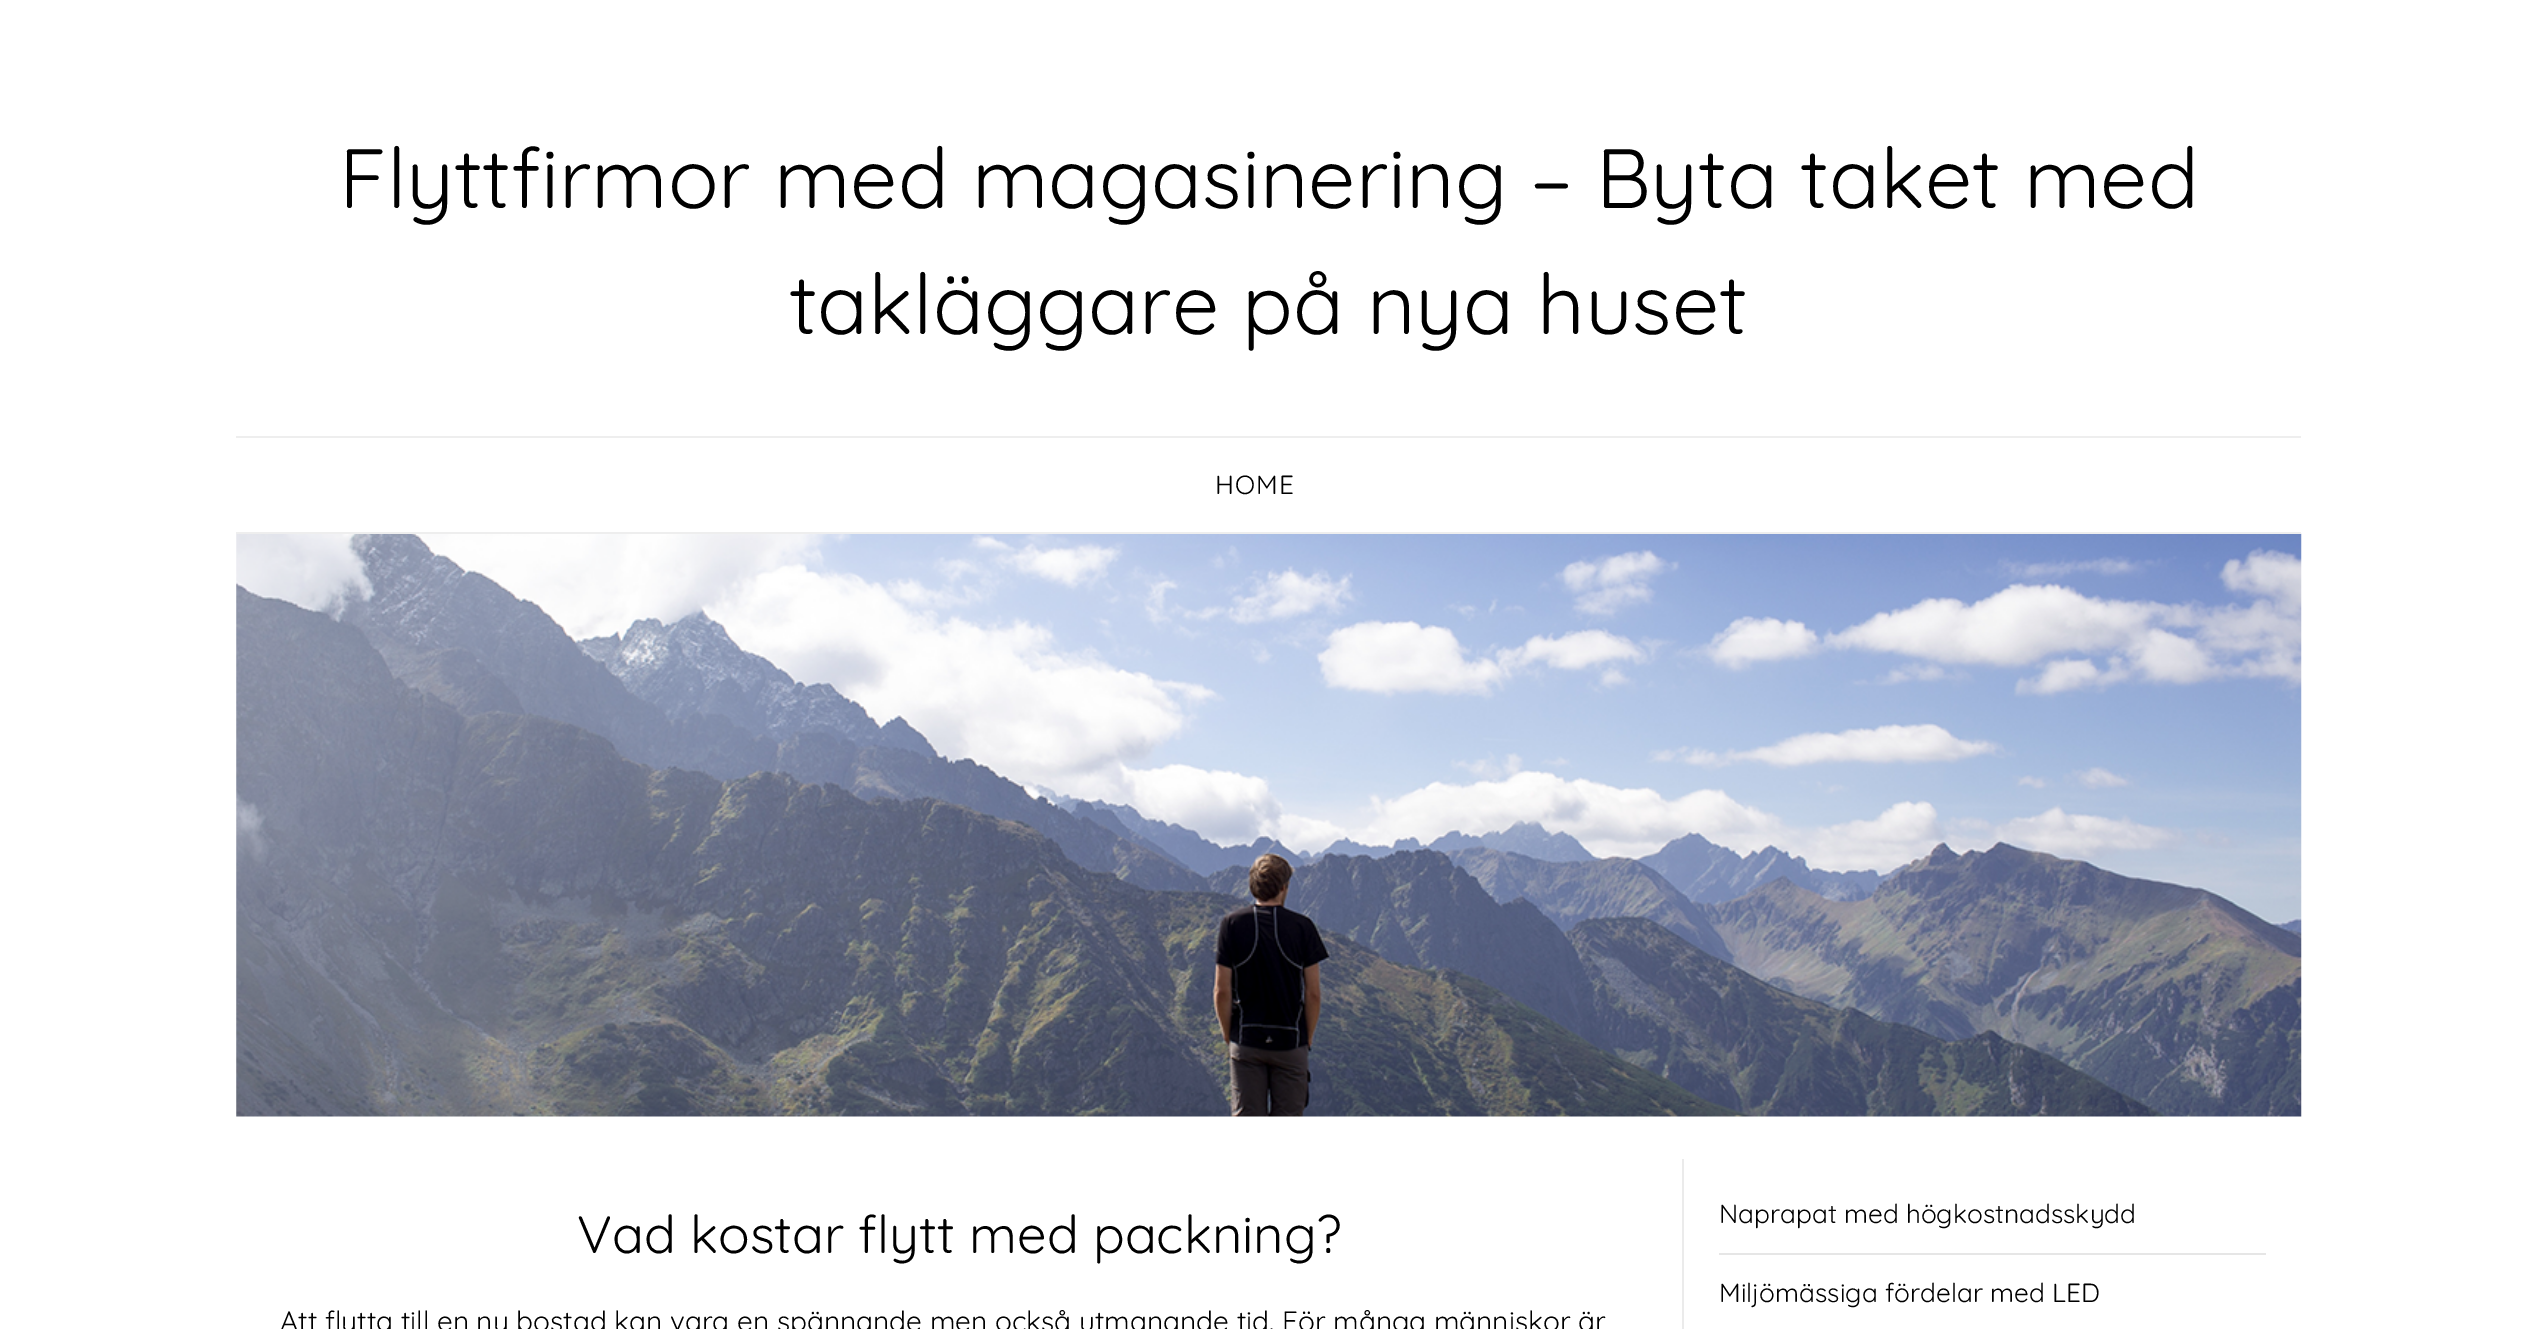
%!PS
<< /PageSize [2537 1329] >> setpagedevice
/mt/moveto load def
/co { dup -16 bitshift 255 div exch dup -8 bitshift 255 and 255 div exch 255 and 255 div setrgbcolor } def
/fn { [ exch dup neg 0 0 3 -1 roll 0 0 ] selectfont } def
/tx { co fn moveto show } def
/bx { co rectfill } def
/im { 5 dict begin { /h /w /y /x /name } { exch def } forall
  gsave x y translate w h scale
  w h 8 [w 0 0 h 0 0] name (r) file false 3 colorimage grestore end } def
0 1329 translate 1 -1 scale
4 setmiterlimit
0 0 2537 1329 16#FFFFFF bx
236 436 2065 2 16#EEEEEE bx
(media/1.raw) 236 533 2066 584 im
236 532 2065 2 16#EEEEEE bx
1682 1159 2 170 16#EBEBEB bx
1719 1253 547 2 16#E6E6E6 bx
(Flyttfirmor med magasinering – Byta taket med) 339 208 /Quicksand-Regular 84 16#000000 tx
(takläggare på nya huset) 789 334 /Quicksand-Regular 84 16#000000 tx
/Quicksand-Regular 26.25 fn
1215 494 mt 1 0 (HOME) ashow
(Vad kostar flytt med packning?) 577 1253 /Quicksand-Regular 52.5 16#000000 tx
(Att flytta till en ny bostad kan vara en spännande men också utmanande tid. För många människor är) 280 1331 /Quicksand-Regular 28 16#000000 tx
(Naprapat med högkostnadsskydd) 1719 1223 /Quicksand-Regular 26.25 16#000000 tx
(Miljömässiga fördelar med LED) 1719 1302 /Quicksand-Regular 26.25 16#000000 tx
showpage
